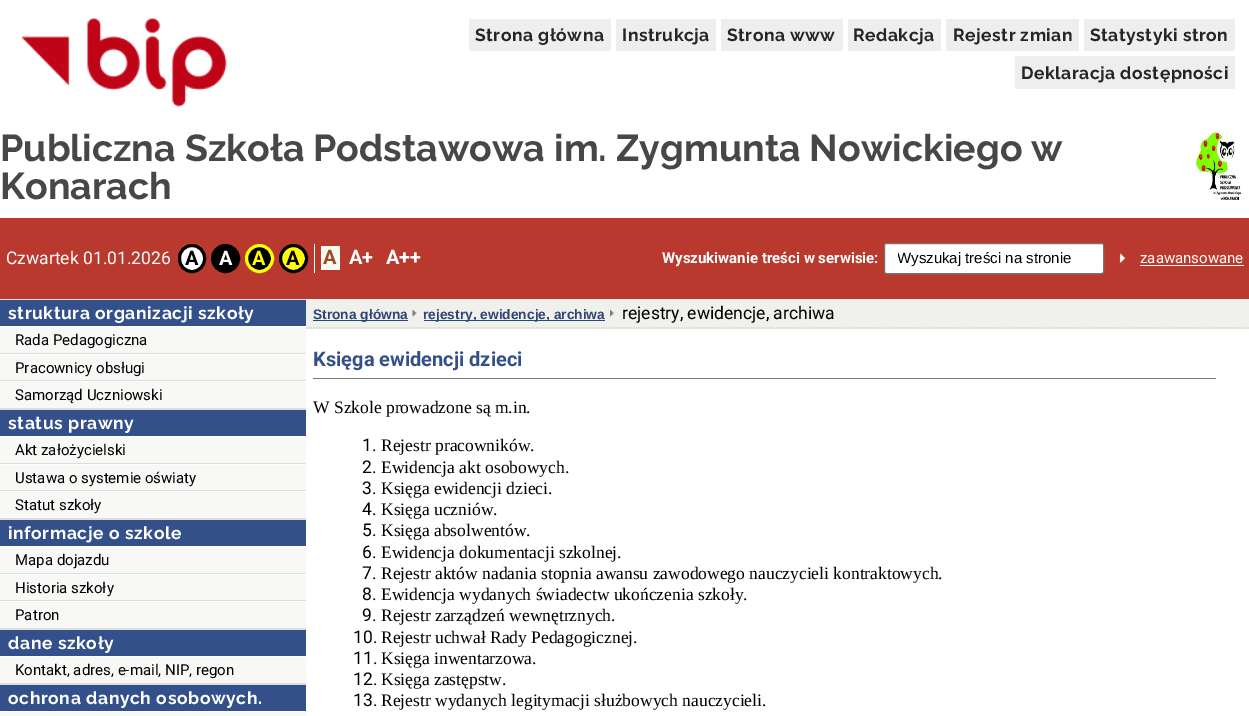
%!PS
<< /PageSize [1249 716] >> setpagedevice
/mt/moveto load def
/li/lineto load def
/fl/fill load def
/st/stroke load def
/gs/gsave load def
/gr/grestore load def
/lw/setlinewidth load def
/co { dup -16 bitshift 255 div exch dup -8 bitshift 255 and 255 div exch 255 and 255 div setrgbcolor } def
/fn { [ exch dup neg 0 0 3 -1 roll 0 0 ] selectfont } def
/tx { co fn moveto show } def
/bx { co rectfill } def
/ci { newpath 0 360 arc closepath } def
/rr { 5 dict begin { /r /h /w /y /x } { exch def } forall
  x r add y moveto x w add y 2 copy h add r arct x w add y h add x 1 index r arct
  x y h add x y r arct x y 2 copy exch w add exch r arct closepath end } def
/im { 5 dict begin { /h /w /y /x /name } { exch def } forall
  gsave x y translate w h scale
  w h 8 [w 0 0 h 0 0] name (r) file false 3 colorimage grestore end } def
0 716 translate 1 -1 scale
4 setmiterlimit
0 0 1249 716 16#FFFFFF bx
(media/1.raw) 21 17 206 90 im
469 19 142 32 16#EEEEEE bx
616 19 100 32 16#EEEEEE bx
721 19 122 32 16#EEEEEE bx
848 19 93 32 16#EEEEEE bx
946 19 133 32 16#EEEEEE bx
1084 19 151 32 16#EEEEEE bx
1015 56 220 33 16#EEEEEE bx
(media/2.raw) 1195 130 46 70 im
0 218 1249 81 16#B9392E bx
314 244 1 29 16#FFFFFF bx
179.5 245.5 25 26 12.5 rr gs fl gr
16#000000 co
3 lw
st
225.5 258.5 13 ci gs fl gr
st
259.5 258.5 13 ci gs fl gr
16#FFFF00 co
st
293.5 258.5 13 ci gs fl gr
16#000000 co
st
321 246 19 24 16#F8F9F1 bx
16#FFFFFF co
884.5 243.5 219 30 2 rr gs fl gr
16#767676 co
1 lw
st
(media/3.raw) 1119 253 7 10 im
1140 265 104 1 16#FFFFFF bx
0 327 306 389 16#F8F8F6 bx
0 300 306 26 16#34508B bx
0 299 306 1 16#DDDDDC bx
0 353 306 1 16#DDDDDC bx
0 354 306 1 16#FFFFFF bx
0 380 306 1 16#DDDDDC bx
0 381 306 1 16#FFFFFF bx
0 408 306 2 16#DDDDDC bx
0 410 306 26 16#34508B bx
0 436 306 1 16#FFFFFF bx
0 463 306 1 16#DDDDDC bx
0 464 306 1 16#FFFFFF bx
0 490 306 1 16#DDDDDC bx
0 491 306 1 16#FFFFFF bx
0 518 306 2 16#DDDDDC bx
0 520 306 26 16#34508B bx
0 546 306 1 16#FFFFFF bx
0 573 306 1 16#DDDDDC bx
0 574 306 1 16#FFFFFF bx
0 600 306 1 16#DDDDDC bx
0 601 306 1 16#FFFFFF bx
0 628 306 2 16#DDDDDC bx
0 630 306 26 16#34508B bx
0 656 306 1 16#FFFFFF bx
0 683 306 2 16#DDDDDC bx
0 685 306 26 16#34508B bx
0 711 306 1 16#FFFFFF bx
306 299 943 30 16#F0F0ED bx
16#CFCFC6 co
1.2 lw
[1.25 1.25] 0 setdash
306 328 mt 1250 328 li st
313 320 95 1 16#2C4476 bx
(media/4.raw) 412 310 5 7 im
424 320 181 1 16#2C4476 bx
(media/5.raw) 610 310 4 7 im
313 378 903 1 16#777777 bx
/Raleway-Bold 17.5 fn
16#282425 co
475 41 mt .5 0 (Strona główna) ashow
622 41 mt .5 0 (Instrukcja) ashow
727 41 mt .5 0 (Strona www) ashow
853 41 mt .5 0 (Redakcja) ashow
953 41 mt .5 0 (Rejestr zmian) ashow
1090 41 mt .5 0 (Statystyki stron) ashow
1021 79 mt .5 0 (Deklaracja dostępności) ashow
(Publiczna Szkoła Podstawowa im. Zygmunta Nowickiego w) 0 161 /Raleway-Bold 37.5 16#474747 tx
(Konarach) 0 199 /Raleway-Bold 37.5 16#474747 tx
(Czwartek 01.01.2026) 6 264 /Roboto-Regular 17.5 16#FFFFFF tx
(A) 185 265 /Roboto-Bold 20 16#000000 tx
(A) 219 265 /Roboto-Bold 20 16#FFFFFF tx
(A) 252 265 /Roboto-Bold 20 16#FFFF00 tx
(A) 286 265 /Roboto-Bold 20 16#000000 tx
(A) 323 264 /Roboto-Bold 20 16#9A4D22 tx
(A+) 349 264 /Roboto-Bold 20 16#FFFFFF tx
(A++) 386 264 /Roboto-Bold 20 16#FFFFFF tx
(Wyszukiwanie treści w serwisie:) 662 263 /Roboto-Bold 15 16#FFFFFF tx
gs
898 250 193 18 rectclip
(Wyszukaj treści na stronie) 897 263 /LiberationSans-Regular 15 16#000000 tx
gr
(zaawansowane) 1140 263 /Roboto-Regular 15 16#FFFFFF tx
/Raleway-Bold 17.5 fn
8 319 mt .6 0 (struktura organizacji szkoły) ashow
(Rada Pedagogiczna) 15 345 /Roboto-Regular 15 16#000000 tx
(Pracownicy obsługi) 15 373 /Roboto-Regular 15 16#000000 tx
(Samorząd Uczniowski) 15 400 /Roboto-Regular 15 16#000000 tx
/Raleway-Bold 17.5 fn
16#FFFFFF co
8 429 mt .6 0 (status prawny) ashow
(Akt założycielski) 15 455 /Roboto-Regular 15 16#000000 tx
(Ustawa o systemie oświaty) 15 483 /Roboto-Regular 15 16#000000 tx
(Statut szkoły) 15 510 /Roboto-Regular 15 16#000000 tx
/Raleway-Bold 17.5 fn
16#FFFFFF co
8 539 mt .6 0 (informacje o szkole) ashow
(Mapa dojazdu) 15 565 /Roboto-Regular 15 16#000000 tx
(Historia szkoły) 15 593 /Roboto-Regular 15 16#000000 tx
(Patron) 15 620 /Roboto-Regular 15 16#000000 tx
/Raleway-Bold 17.5 fn
16#FFFFFF co
8 649 mt .6 0 (dane szkoły) ashow
(Kontakt, adres, e-mail, NIP, regon) 15 675 /Roboto-Regular 15 16#000000 tx
/Raleway-Bold 17.5 fn
16#FFFFFF co
8 704 mt .6 0 (ochrona danych osobowych.) ashow
(Strona główna) 313 319 /LiberationSans-Bold 13.75 16#2C4476 tx
(rejestry, ewidencje, archiwa) 423 319 /LiberationSans-Bold 13.75 16#2C4476 tx
(rejestry, ewidencje, archiwa) 622 319 /Roboto-Regular 17.5 16#000000 tx
(Księga ewidencji dzieci) 313 366 /Roboto-Bold 20 16#34508B tx
(W Szkole prowadzone są m.in.) 313 413 /LiberationSerif-Regular 17.5 16#000000 tx
(1.) 362 451 /Roboto-Regular 17.5 16#000000 tx
(Rejestr pracowników.) 381 451 /LiberationSerif-Regular 17.5 16#000000 tx
(2.) 362 473 /Roboto-Regular 17.5 16#000000 tx
(Ewidencja akt osobowych.) 381 473 /LiberationSerif-Regular 17.5 16#000000 tx
(3.) 362 494 /Roboto-Regular 17.5 16#000000 tx
(Księga ewidencji dzieci.) 381 494 /LiberationSerif-Regular 17.5 16#000000 tx
(4.) 362 515 /Roboto-Regular 17.5 16#000000 tx
(Księga uczniów.) 381 515 /LiberationSerif-Regular 17.5 16#000000 tx
(5.) 362 536 /Roboto-Regular 17.5 16#000000 tx
(Księga absolwentów.) 381 536 /LiberationSerif-Regular 17.5 16#000000 tx
(6.) 362 558 /Roboto-Regular 17.5 16#000000 tx
(Ewidencja dokumentacji szkolnej.) 381 558 /LiberationSerif-Regular 17.5 16#000000 tx
(7.) 362 579 /Roboto-Regular 17.5 16#000000 tx
(Rejestr aktów nadania stopnia awansu zawodowego nauczycieli kontraktowych.) 381 579 /LiberationSerif-Regular 17.5 16#000000 tx
(8.) 362 600 /Roboto-Regular 17.5 16#000000 tx
(Ewidencja wydanych świadectw ukończenia szkoły.) 381 600 /LiberationSerif-Regular 17.5 16#000000 tx
(9.) 362 621 /Roboto-Regular 17.5 16#000000 tx
(Rejestr zarządzeń wewnętrznych.) 381 621 /LiberationSerif-Regular 17.5 16#000000 tx
(10.) 353 643 /Roboto-Regular 17.5 16#000000 tx
(Rejestr uchwał Rady Pedagogicznej.) 381 643 /LiberationSerif-Regular 17.5 16#000000 tx
(11.) 353 664 /Roboto-Regular 17.5 16#000000 tx
(Księga inwentarzowa.) 381 664 /LiberationSerif-Regular 17.5 16#000000 tx
(12.) 353 685 /Roboto-Regular 17.5 16#000000 tx
(Księga zastępstw.) 381 685 /LiberationSerif-Regular 17.5 16#000000 tx
(13.) 353 706 /Roboto-Regular 17.5 16#000000 tx
(Rejestr wydanych legitymacji służbowych nauczycieli.) 381 706 /LiberationSerif-Regular 17.5 16#000000 tx
showpage
